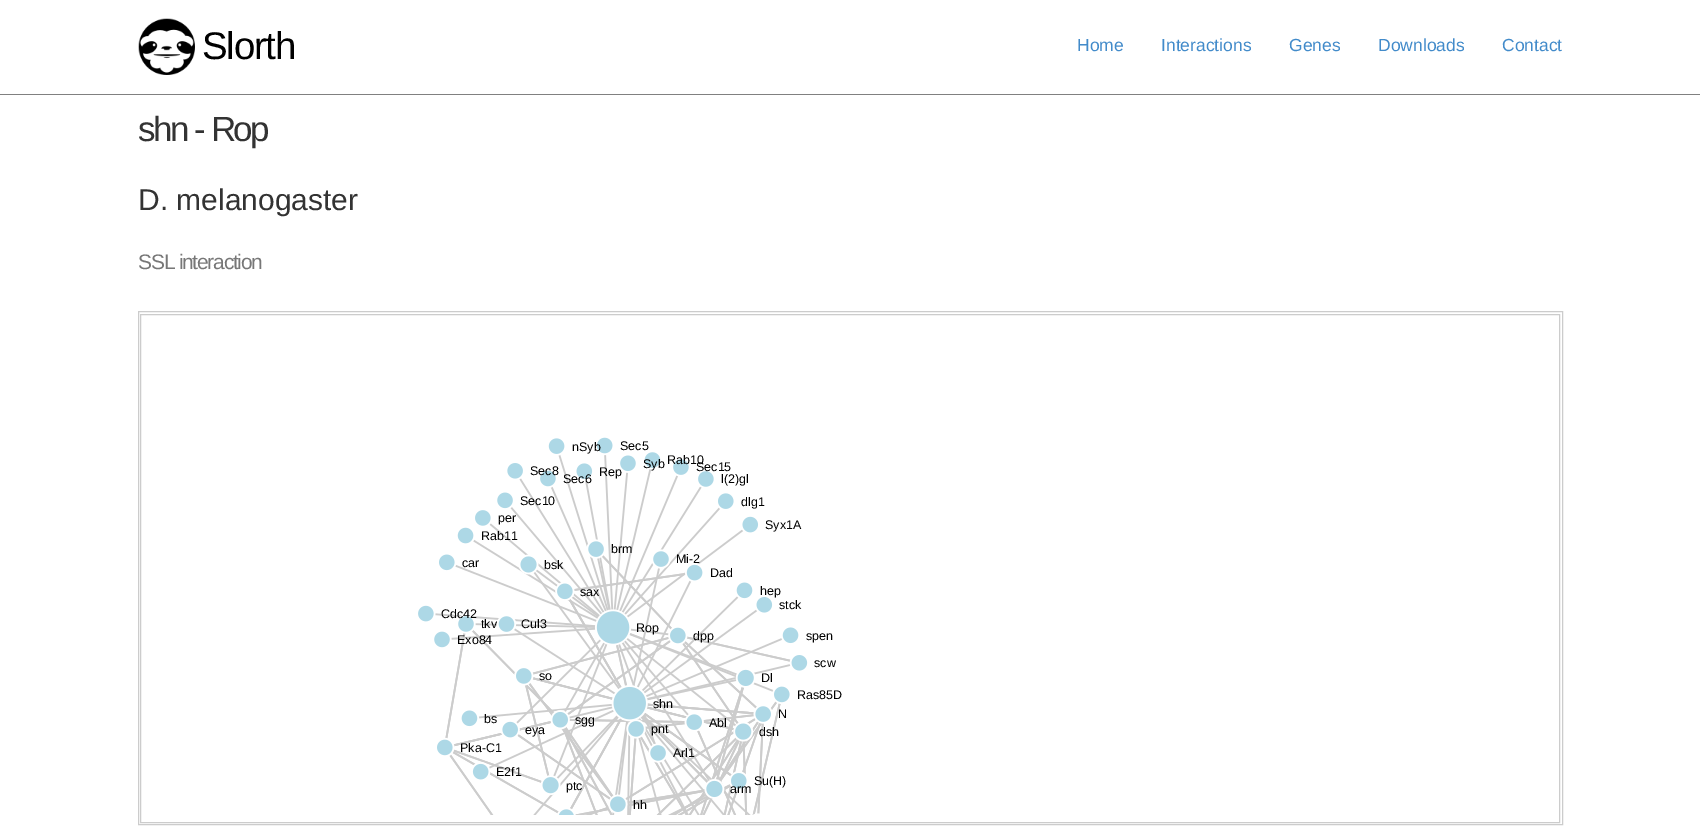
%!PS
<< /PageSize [1700 826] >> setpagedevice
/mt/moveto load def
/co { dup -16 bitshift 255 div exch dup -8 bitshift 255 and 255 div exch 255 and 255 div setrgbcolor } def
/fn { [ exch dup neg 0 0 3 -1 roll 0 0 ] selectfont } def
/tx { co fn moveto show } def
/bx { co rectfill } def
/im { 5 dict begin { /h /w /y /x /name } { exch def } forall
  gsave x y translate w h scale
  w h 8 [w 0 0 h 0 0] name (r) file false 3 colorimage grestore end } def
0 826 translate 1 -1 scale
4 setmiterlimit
0 0 1700 826 16#FFFFFF bx
0 94 1700 1 16#808080 bx
(media/1.raw) 138 18 57 57 im
16#CCCCCC co
138.5 311.5 1424 513 rectstroke
140.5 314.5 1419 508 rectstroke
(media/2.raw) 418 437 390 378 im
/LiberationSans-Regular 38.5 fn
16#000000 co
202 59 mt -1.25 0 (Slorth) ashow
(Home) 1077 51 /LiberationSans-Regular 17.5 16#428BCA tx
(Interactions) 1161 51 /LiberationSans-Regular 17.5 16#428BCA tx
(Genes) 1289 51 /LiberationSans-Regular 17.5 16#428BCA tx
(Downloads) 1378 51 /LiberationSans-Regular 17.5 16#428BCA tx
(Contact) 1502 51 /LiberationSans-Regular 17.5 16#428BCA tx
/LiberationSans-Regular 35 fn
16#333333 co
138 141 mt -2.5 0 (shn - Rop) ashow
(D. melanogaster) 138 210 /LiberationSans-Regular 30 16#333333 tx
/LiberationSans-Regular 21 fn
16#777777 co
138 269 mt -1.25 0 (SSL interaction) ashow
(nSyb) 572 451 /LiberationSans-Regular 12.5 16#000000 tx
(Sec5) 620 450 /LiberationSans-Regular 12.5 16#000000 tx
(Sec8) 530 475 /LiberationSans-Regular 12.5 16#000000 tx
(Sec6) 563 483 /LiberationSans-Regular 12.5 16#000000 tx
(Rep) 599 476 /LiberationSans-Regular 12.5 16#000000 tx
(Syb) 643 468 /LiberationSans-Regular 12.5 16#000000 tx
(Rab10) 667 464 /LiberationSans-Regular 12.5 16#000000 tx
(Sec15) 696 471 /LiberationSans-Regular 12.5 16#000000 tx
(l\(2\)gl) 721 483 /LiberationSans-Regular 12.5 16#000000 tx
(Sec10) 520 505 /LiberationSans-Regular 12.5 16#000000 tx
(dlg1) 741 506 /LiberationSans-Regular 12.5 16#000000 tx
(per) 498 522 /LiberationSans-Regular 12.5 16#000000 tx
(Syx1A) 765 529 /LiberationSans-Regular 12.5 16#000000 tx
(Rab11) 481 540 /LiberationSans-Regular 12.5 16#000000 tx
(brm) 611 553 /LiberationSans-Regular 12.5 16#000000 tx
(Mi-2) 676 563 /LiberationSans-Regular 12.5 16#000000 tx
(car) 462 567 /LiberationSans-Regular 12.5 16#000000 tx
(bsk) 544 569 /LiberationSans-Regular 12.5 16#000000 tx
(Dad) 710 577 /LiberationSans-Regular 12.5 16#000000 tx
(sax) 580 596 /LiberationSans-Regular 12.5 16#000000 tx
(hep) 760 595 /LiberationSans-Regular 12.5 16#000000 tx
(stck) 779 609 /LiberationSans-Regular 12.5 16#000000 tx
(Cdc42) 441 618 /LiberationSans-Regular 12.5 16#000000 tx
(tkv) 481 628 /LiberationSans-Regular 12.5 16#000000 tx
(Cul3) 521 628 /LiberationSans-Regular 12.5 16#000000 tx
(Rop) 636 632 /LiberationSans-Regular 12.5 16#000000 tx
(dpp) 693 640 /LiberationSans-Regular 12.5 16#000000 tx
(spen) 806 640 /LiberationSans-Regular 12.5 16#000000 tx
(Exo84) 457 644 /LiberationSans-Regular 12.5 16#000000 tx
(scw) 814 667 /LiberationSans-Regular 12.5 16#000000 tx
(so) 539 680 /LiberationSans-Regular 12.5 16#000000 tx
(Dl) 761 682 /LiberationSans-Regular 12.5 16#000000 tx
(Ras85D) 797 699 /LiberationSans-Regular 12.5 16#000000 tx
(shn) 653 708 /LiberationSans-Regular 12.5 16#000000 tx
(bs) 484 723 /LiberationSans-Regular 12.5 16#000000 tx
(sgg) 575 724 /LiberationSans-Regular 12.5 16#000000 tx
(Abl) 709 727 /LiberationSans-Regular 12.5 16#000000 tx
(N) 778 718 /LiberationSans-Regular 12.5 16#000000 tx
(eya) 525 734 /LiberationSans-Regular 12.5 16#000000 tx
(pnt) 651 733 /LiberationSans-Regular 12.5 16#000000 tx
(dsh) 759 736 /LiberationSans-Regular 12.5 16#000000 tx
(Pka-C1) 460 752 /LiberationSans-Regular 12.5 16#000000 tx
(Arl1) 673 757 /LiberationSans-Regular 12.5 16#000000 tx
(E2f1) 496 776 /LiberationSans-Regular 12.5 16#000000 tx
(ptc) 566 790 /LiberationSans-Regular 12.5 16#000000 tx
(arm) 730 793 /LiberationSans-Regular 12.5 16#000000 tx
(Su\(H\)) 754 785 /LiberationSans-Regular 12.5 16#000000 tx
(hh) 633 809 /LiberationSans-Regular 12.5 16#000000 tx
showpage
